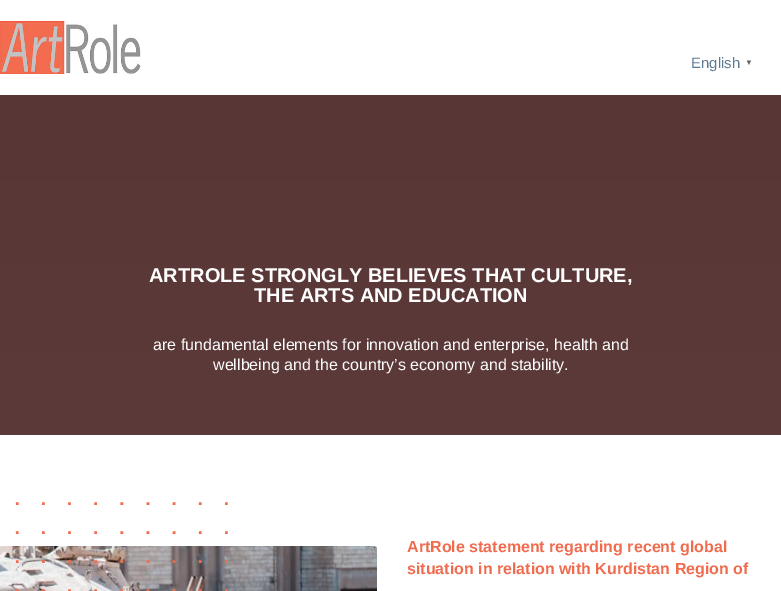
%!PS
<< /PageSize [781 591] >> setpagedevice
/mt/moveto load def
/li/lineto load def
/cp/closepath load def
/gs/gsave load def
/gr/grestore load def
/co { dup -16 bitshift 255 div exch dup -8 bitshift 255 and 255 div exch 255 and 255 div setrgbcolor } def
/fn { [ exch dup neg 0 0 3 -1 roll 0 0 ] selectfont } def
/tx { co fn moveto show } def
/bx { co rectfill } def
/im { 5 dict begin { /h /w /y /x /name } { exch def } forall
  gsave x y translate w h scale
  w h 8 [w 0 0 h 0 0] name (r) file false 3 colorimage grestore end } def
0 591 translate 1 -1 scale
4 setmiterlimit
0 0 781 591 16#FFFFFF bx
(media/1.raw) 0 21 141 53 im
gs 0 95 mt 781 95 li 781 435 li 0 435 li cp clip newpath
<< /ShadingType 2 /ColorSpace /DeviceRGB /Coords [391 95 391 435] /Extend [true true] /Function << /FunctionType 2 /Domain [0 1] /C0 [.349 .212 .212] /C1 [.365 .227 .227] /N 1 >> >> shfill gr
(media/3.raw) 0 546 377 45 im
(media/2.raw) 15 502 213 89 im
(English) 691 68 /LiberationSans-Regular 15 16#5D7B94 tx
(▼) 745 65 /LiberationSans-Bold 8 16#666666 tx
(ARTROLE STRONGLY BELIEVES THAT CULTURE,) 149 282 /LiberationSans-Bold 20 16#FEFEFE tx
(THE ARTS AND EDUCATION) 254 302 /LiberationSans-Bold 20 16#FEFEFE tx
(are fundamental elements for innovation and enterprise, health and) 153 350 /LiberationSans-Regular 16 16#FEFEFE tx
(wellbeing and the country’s economy and stability.) 213 370 /LiberationSans-Regular 16 16#FEFEFE tx
(ArtRole statement regarding recent global) 407 552 /LiberationSans-Bold 16 16#F16C4F tx
(situation in relation with Kurdistan Region of) 407 574 /LiberationSans-Bold 16 16#F16C4F tx
showpage
